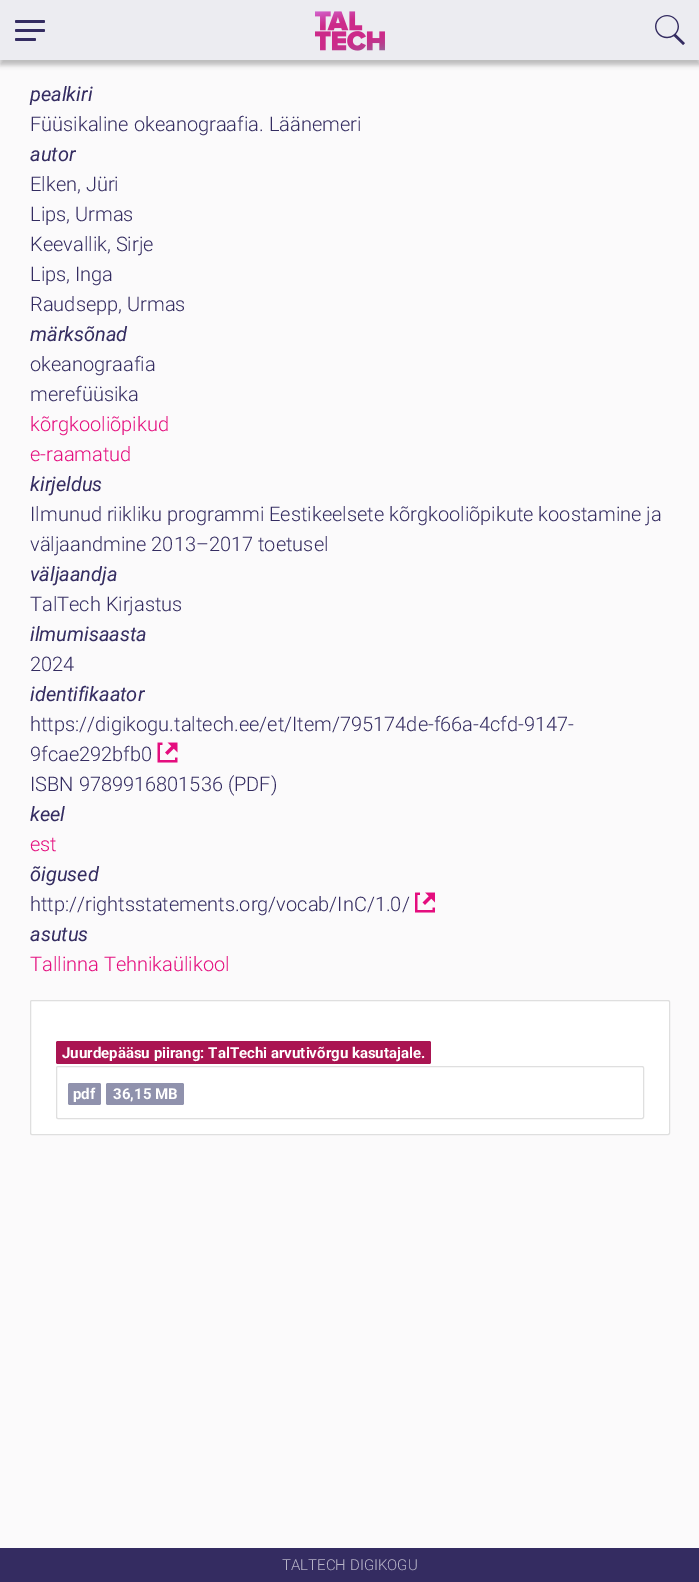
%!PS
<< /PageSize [699 1582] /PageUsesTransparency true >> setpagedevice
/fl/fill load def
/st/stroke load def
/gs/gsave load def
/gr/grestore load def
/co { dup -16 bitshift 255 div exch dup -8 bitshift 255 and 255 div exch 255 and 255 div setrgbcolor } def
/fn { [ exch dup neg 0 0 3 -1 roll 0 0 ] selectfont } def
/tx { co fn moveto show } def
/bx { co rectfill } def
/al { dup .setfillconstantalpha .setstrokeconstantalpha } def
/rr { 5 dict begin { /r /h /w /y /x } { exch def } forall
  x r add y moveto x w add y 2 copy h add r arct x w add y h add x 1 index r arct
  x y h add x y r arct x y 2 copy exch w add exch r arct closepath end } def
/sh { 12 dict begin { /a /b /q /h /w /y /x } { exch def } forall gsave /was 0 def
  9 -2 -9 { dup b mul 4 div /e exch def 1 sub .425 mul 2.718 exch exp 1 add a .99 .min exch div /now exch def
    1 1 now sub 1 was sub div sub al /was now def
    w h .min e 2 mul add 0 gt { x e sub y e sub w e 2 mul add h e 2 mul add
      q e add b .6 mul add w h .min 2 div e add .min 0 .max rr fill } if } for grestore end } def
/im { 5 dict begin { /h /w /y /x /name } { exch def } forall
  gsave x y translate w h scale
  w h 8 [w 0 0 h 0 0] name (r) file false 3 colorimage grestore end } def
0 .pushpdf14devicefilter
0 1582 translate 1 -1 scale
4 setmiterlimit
0 0 699 1582 16#FBFAFB bx
16#000000 co
0 5 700 60 0 2.5 .25 sh
0 0 699 60 16#ECECF1 bx
16#342C61 co
15 29 30 3 1.5 rr fl
15 20 30 3 1.5 rr fl
15 38 21 3 1.5 rr fl
(media/1.raw) 315 11 70 40 im
(media/2.raw) 655 15 30 30 im
(media/3.raw) 157 742 21 21 im
(media/4.raw) 415 892 20 21 im
16#FFFFFF co
30.5 1000.5 639 134 1.5 rr gs fl gr
16#DFDFDF co
st
16#AA1552 co
56 1041 375 23 2 rr fl
16#DFDFDF co
56.5 1066.5 587 52 1.5 rr st
16#9092AD co
68 1083 33 22 2 rr fl
106 1083 78 22 2 rr fl
0 1548 699 34 16#342C61 bx
(pealkiri) 30 101 /Roboto-Italic 20 16#342C61 tx
(Füüsikaline okeanograafia. Läänemeri) 30 131 /Roboto-Light 20 16#342C61 tx
(autor) 30 161 /Roboto-Italic 20 16#342C61 tx
(Elken, Jüri) 30 191 /Roboto-Light 20 16#342C61 tx
(Lips, Urmas) 30 221 /Roboto-Light 20 16#342C61 tx
(Keevallik, Sirje) 30 251 /Roboto-Light 20 16#342C61 tx
(Lips, Inga) 30 281 /Roboto-Light 20 16#342C61 tx
(Raudsepp, Urmas) 30 311 /Roboto-Light 20 16#342C61 tx
(märksõnad) 30 341 /Roboto-Italic 20 16#342C61 tx
(okeanograafia) 30 371 /Roboto-Light 20 16#342C61 tx
(merefüüsika) 30 401 /Roboto-Light 20 16#342C61 tx
(kõrgkooliõpikud) 30 431 /Roboto-Light 20 16#E40D7E tx
(e-raamatud) 30 461 /Roboto-Light 20 16#E40D7E tx
(kirjeldus) 30 491 /Roboto-Italic 20 16#342C61 tx
(Ilmunud riikliku programmi Eestikeelsete kõrgkooliõpikute koostamine ja) 30 521 /Roboto-Light 20 16#342C61 tx
(väljaandmine 2013–2017 toetusel) 30 551 /Roboto-Light 20 16#342C61 tx
(väljaandja) 30 581 /Roboto-Italic 20 16#342C61 tx
(TalTech Kirjastus) 30 611 /Roboto-Light 20 16#342C61 tx
(ilmumisaasta) 30 641 /Roboto-Italic 20 16#342C61 tx
(2024) 30 671 /Roboto-Light 20 16#342C61 tx
(identifikaator) 30 701 /Roboto-Italic 20 16#342C61 tx
(https://digikogu.taltech.ee/et/Item/795174de-f66a-4cfd-9147-) 30 731 /Roboto-Light 20 16#342C61 tx
(9fcae292bfb0) 30 761 /Roboto-Light 20 16#342C61 tx
(ISBN 9789916801536 \(PDF\)) 30 791 /Roboto-Light 20 16#342C61 tx
(keel) 30 821 /Roboto-Italic 20 16#342C61 tx
(est) 30 851 /Roboto-Light 20 16#E40D7E tx
(õigused) 30 881 /Roboto-Italic 20 16#342C61 tx
(http://rightsstatements.org/vocab/InC/1.0/) 30 911 /Roboto-Light 20 16#342C61 tx
(asutus) 30 941 /Roboto-Italic 20 16#342C61 tx
(Tallinna Tehnikaülikool) 30 971 /Roboto-Light 20 16#E40D7E tx
(Juurdepääsu piirang: TalTechi arvutivõrgu kasutajale.) 62 1058 /Roboto-Bold 15 16#FFFFFF tx
(pdf) 73 1099 /Roboto-Bold 15 16#FFFFFF tx
(36,15 MB) 113 1099 /Roboto-Bold 15 16#FFFFFF tx
(TALTECH DIGIKOGU) 282 1570 /Roboto-Light 15 16#B8B5C8 tx
.poppdf14devicefilter showpage
